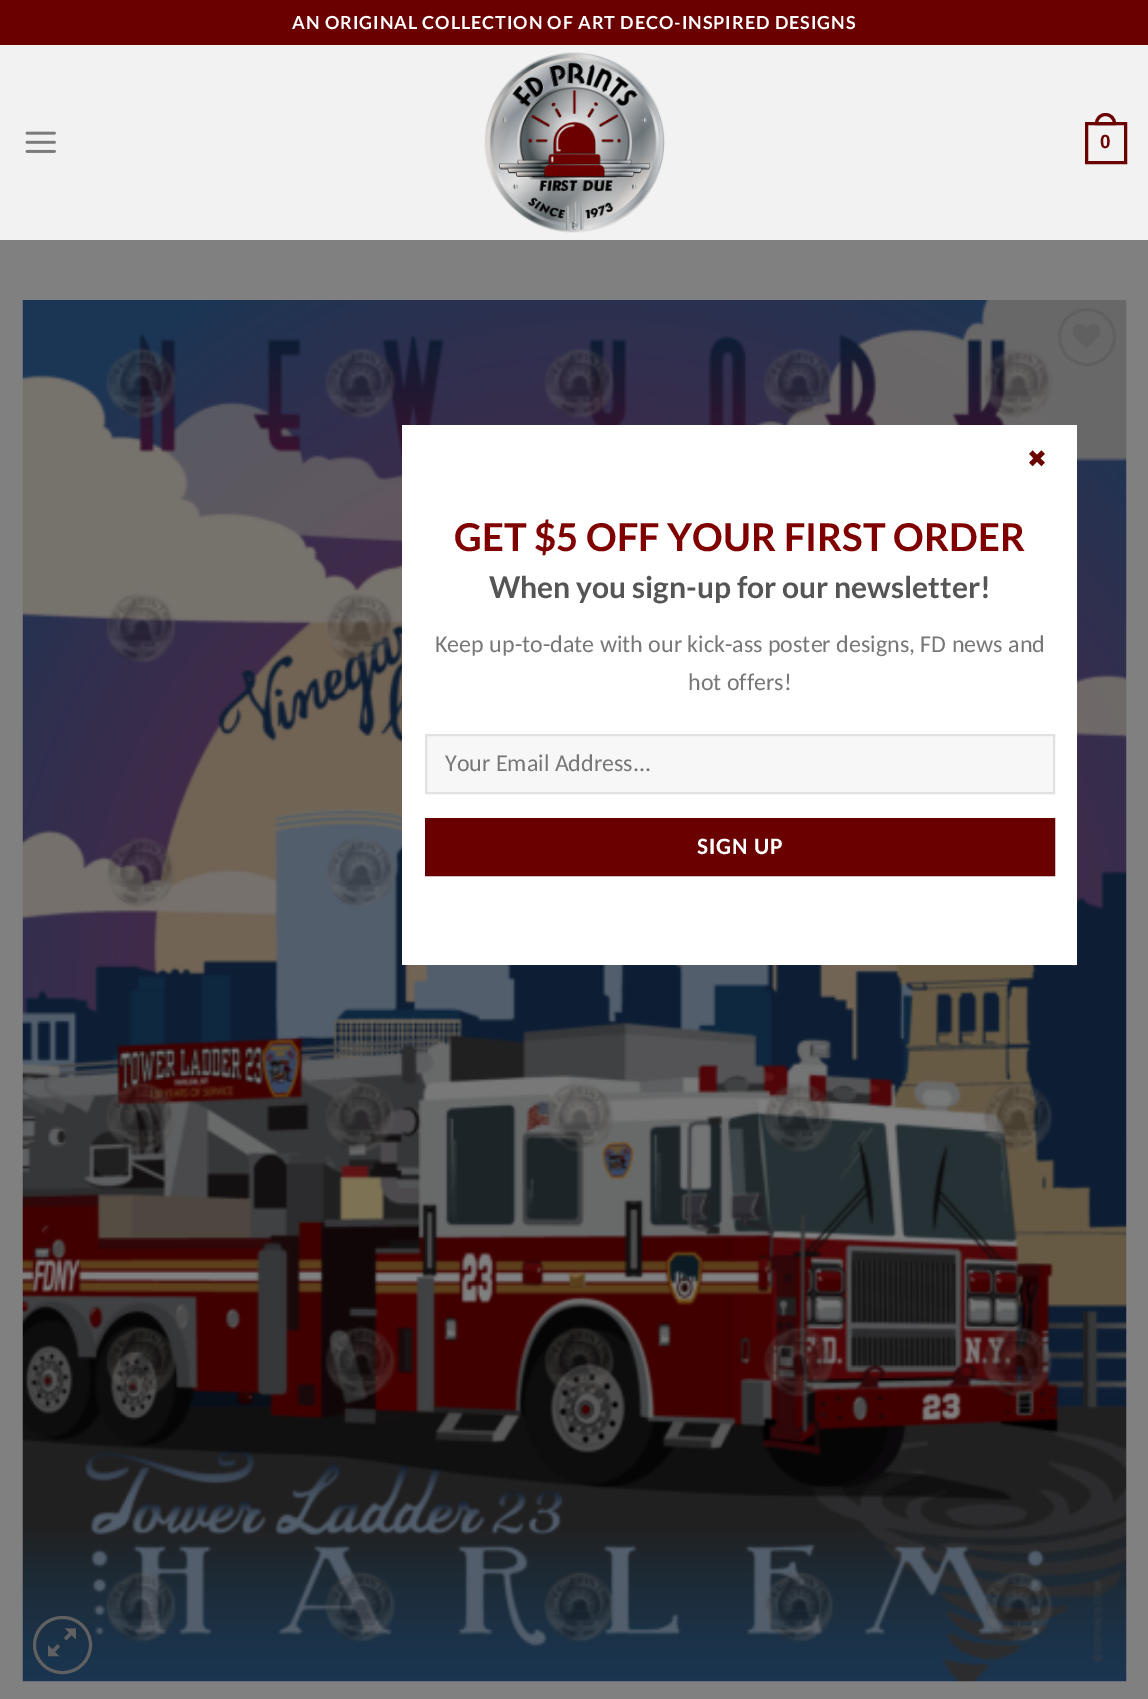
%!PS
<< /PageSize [1148 1699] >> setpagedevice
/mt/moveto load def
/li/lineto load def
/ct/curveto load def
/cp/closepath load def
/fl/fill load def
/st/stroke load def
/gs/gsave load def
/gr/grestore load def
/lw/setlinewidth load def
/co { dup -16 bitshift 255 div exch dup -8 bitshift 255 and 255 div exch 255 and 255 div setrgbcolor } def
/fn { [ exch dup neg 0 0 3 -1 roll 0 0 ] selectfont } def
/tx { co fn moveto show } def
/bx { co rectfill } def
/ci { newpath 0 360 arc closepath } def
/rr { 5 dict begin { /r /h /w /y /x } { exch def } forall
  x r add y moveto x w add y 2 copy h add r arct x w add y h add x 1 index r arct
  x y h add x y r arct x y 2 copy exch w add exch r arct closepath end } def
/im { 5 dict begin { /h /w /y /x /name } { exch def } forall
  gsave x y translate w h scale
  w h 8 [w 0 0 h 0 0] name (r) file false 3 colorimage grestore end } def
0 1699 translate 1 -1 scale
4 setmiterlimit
0 0 1148 1699 16#808080 bx
0 0 1148 45 16#6B0000 bx
0 45 1148 195 16#F2F2F2 bx
(media/1.raw) 25 131 31 22 im
(media/2.raw) 484 52 181 181 im
16#6B0000 co
3 lw
1086.5 123.5 39 39 rectstroke
1105.5 114.5 mt 1110.5 114.5 1114.5 118.5 1114.5 123.5 ct 1096.5 123.5 li 1096.5 118.5 1100.5 114.5 1105.5 114.5 ct cp st
(media/3.raw) 22 300 1105 1382 im
16#606060 co
1087 337 27.5 ci st
(media/4.raw) 1072 324 29 24 im
34.5 1617.5 56 55 27.5 rr st
(media/5.raw) 48 1628 28 29 im
402 425 675 540 16#FFFFFF bx
16#F7F7F7 co
426 735 mt 1054 735 li 1054 793 li 426 793 li cp gs fl gr
16#E1E1E1 co
2 lw
st
16#6B0000 co
426 819 mt 1054 819 li 1054 875 li 426 875 li cp gs fl gr
16#660000 co
st
/Lato-Bold 18 fn
16#FFFFFF co
292 29 mt .9 0 (AN ORIGINAL COLLECTION OF ART DECO-INSPIRED DESIGNS) ashow
(0) 1100 148 /LiberationSans-Bold 19 16#6B0000 tx
(✖) 1027 467 /DejaVuSans-Regular 24 16#6B0000 tx
(GET $5 OFF YOUR FIRST ORDER) 454 551 /Lato-Bold 38.4 16#800000 tx
(When you sign-up for our newsletter!) 489 598 /Lato-Bold 30 16#555555 tx
(Keep up-to-date with our kick-ass poster designs, FD news and) 435 652 /Carlito-Regular 24 16#777777 tx
(hot offers!) 688 690 /Carlito-Regular 24 16#777777 tx
(Your Email Address...) 445 771 /Carlito-Regular 24 16#777777 tx
/Carlito-Bold 23.5 fn
16#FFFFFF co
697 854 mt .75 0 (SIGN UP) ashow
showpage
